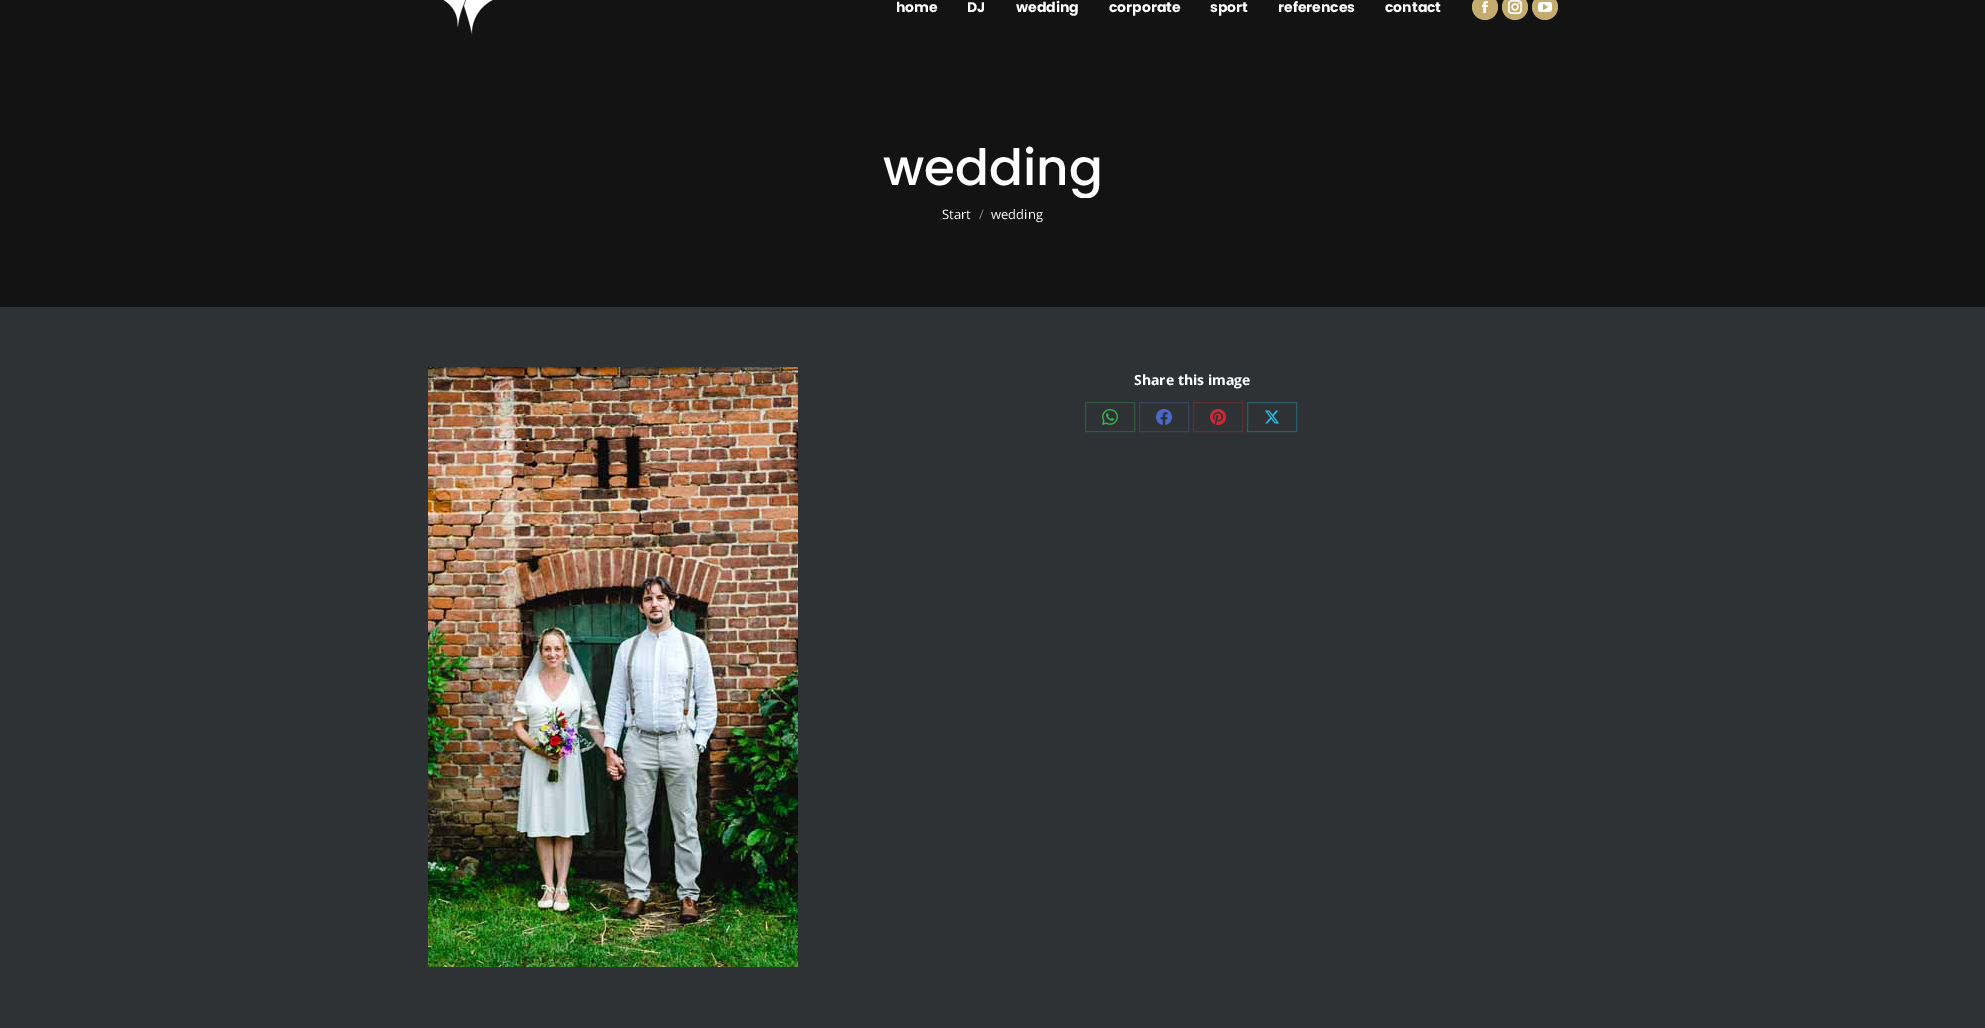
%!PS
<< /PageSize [1985 1028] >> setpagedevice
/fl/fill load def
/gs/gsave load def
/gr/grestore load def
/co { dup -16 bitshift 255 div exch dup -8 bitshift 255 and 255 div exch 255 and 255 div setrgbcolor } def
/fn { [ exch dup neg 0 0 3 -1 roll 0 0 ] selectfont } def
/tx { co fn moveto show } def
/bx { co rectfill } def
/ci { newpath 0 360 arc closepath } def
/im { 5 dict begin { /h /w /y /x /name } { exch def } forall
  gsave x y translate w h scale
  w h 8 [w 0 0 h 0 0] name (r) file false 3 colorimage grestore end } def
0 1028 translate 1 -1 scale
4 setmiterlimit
0 0 1985 1028 16#2F3234 bx
0 0 1985 307 16#131313 bx
(media/1.raw) 443 0 50 36 im
16#C4AC70 co
1485 7 13 ci fl
(media/2.raw) 1482 1 6 12 im
1515 7 13 ci fl
(media/3.raw) 1508 0 14 14 im
1545 7 13 ci fl
(media/4.raw) 1538 2 14 10 im
(media/5.raw) 428 367 370 600 im
16#315A3C co
1085.5 402.5 49 29 rectstroke
(media/6.raw) 1102 409 16 16 im
16#384360 co
1139.5 402.5 49 29 rectstroke
(media/7.raw) 1156 409 16 16 im
16#5F2F34 co
1193.5 402.5 49 29 rectstroke
(media/8.raw) 1210 409 16 16 im
16#2E5C6B co
1247.5 402.5 49 29 rectstroke
(media/9.raw) 1265 410 15 14 im
(home) 896 12 /Poppins-Bold 14 16#FFFFFF tx
(DJ) 967 12 /Poppins-Bold 14 16#FFFFFF tx
(wedding) 1016 12 /Poppins-Bold 14 16#FFFFFF tx
(corporate) 1109 12 /Poppins-Bold 14 16#FFFFFF tx
(sport) 1210 12 /Poppins-Bold 14 16#FFFFFF tx
(references) 1278 12 /Poppins-Bold 14 16#FFFFFF tx
(contact) 1385 12 /Poppins-Bold 14 16#FFFFFF tx
gs
883 138 219 60 rectclip
(wedding) 883 185 /Poppins-Medium 50 16#FFFFFF tx
gr
(Start) 942 219 /OpenSans-Regular 13 16#FFFFFF tx
(/) 979 219 /OpenSans-Regular 13 16#898989 tx
(wedding) 991 219 /OpenSans-Regular 13 16#FFFFFF tx
(Share this image) 1134 385 /OpenSans-Bold 14 16#FFFFFF tx
showpage
